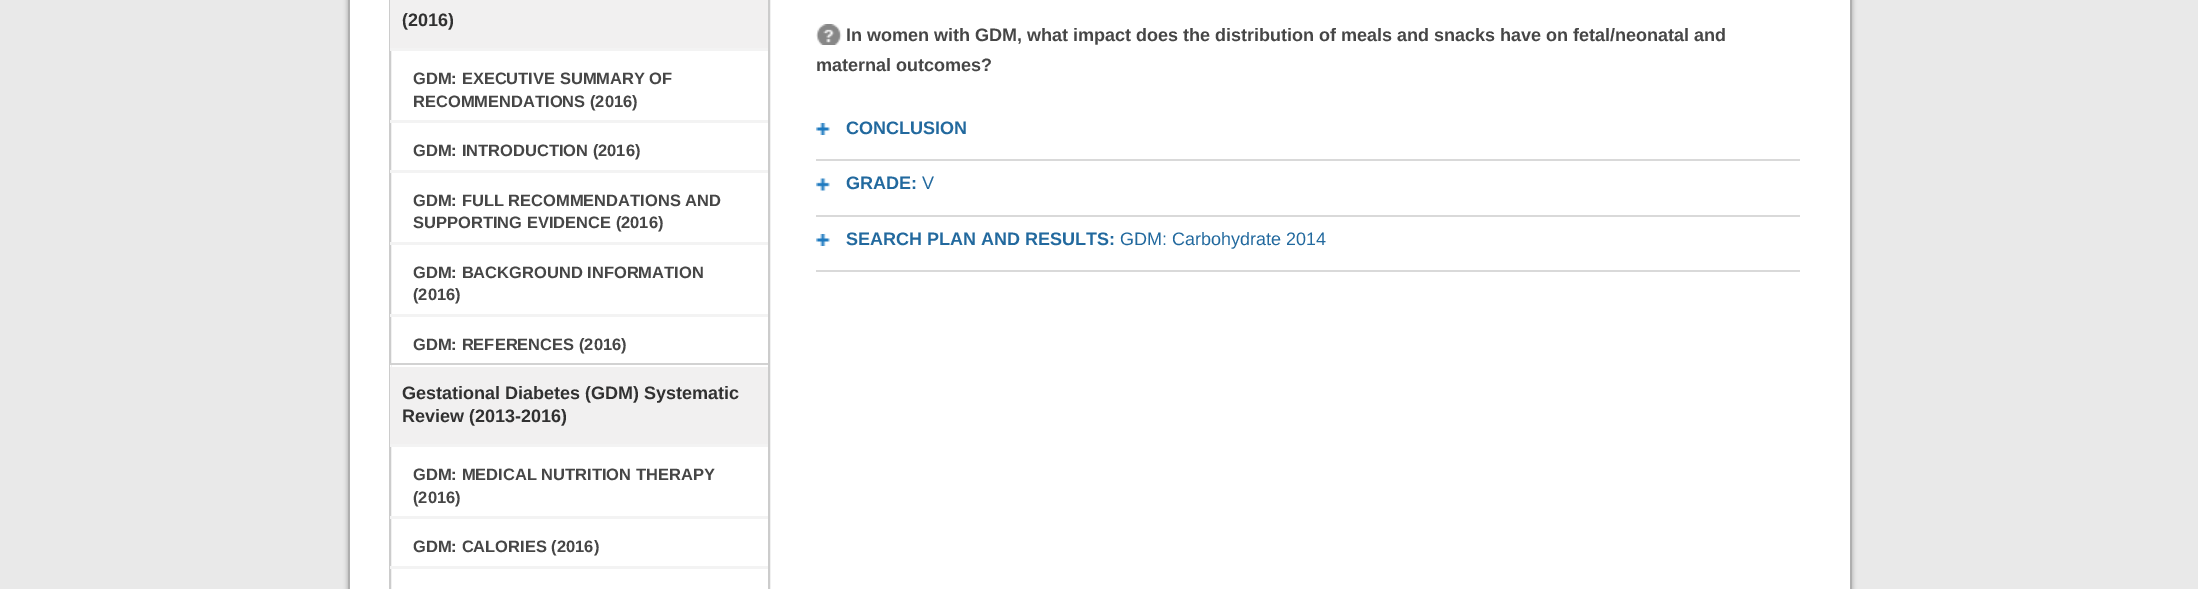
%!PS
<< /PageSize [2198 589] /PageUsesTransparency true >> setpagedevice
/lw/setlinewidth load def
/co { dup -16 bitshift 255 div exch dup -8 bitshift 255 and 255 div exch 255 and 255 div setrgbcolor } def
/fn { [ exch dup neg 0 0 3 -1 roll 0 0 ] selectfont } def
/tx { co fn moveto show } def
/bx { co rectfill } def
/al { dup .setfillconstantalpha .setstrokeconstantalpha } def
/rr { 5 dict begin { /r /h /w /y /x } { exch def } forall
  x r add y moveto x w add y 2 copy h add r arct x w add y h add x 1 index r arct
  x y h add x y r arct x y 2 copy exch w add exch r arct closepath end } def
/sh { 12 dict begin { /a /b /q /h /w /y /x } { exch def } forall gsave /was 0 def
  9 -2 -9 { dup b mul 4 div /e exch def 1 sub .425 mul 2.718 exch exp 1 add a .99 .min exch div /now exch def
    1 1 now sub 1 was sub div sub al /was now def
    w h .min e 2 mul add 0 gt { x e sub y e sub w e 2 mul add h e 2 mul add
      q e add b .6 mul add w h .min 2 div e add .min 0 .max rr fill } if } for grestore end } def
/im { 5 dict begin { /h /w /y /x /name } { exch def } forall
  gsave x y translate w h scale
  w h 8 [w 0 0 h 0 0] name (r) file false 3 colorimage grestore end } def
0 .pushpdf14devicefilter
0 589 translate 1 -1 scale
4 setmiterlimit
0 0 2198 589 16#E9E9E9 bx
16#000000 co
347 -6 1506 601 0 2 .2 sh
350 0 1500 589 16#FFFFFF bx
1850 0 2 589 16#AFAFAF bx
348 0 2 589 16#AFAFAF bx
16#CCCCCC co
2 lw
390 -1 379 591 rectstroke
390 0 378 48 16#F1F0F0 bx
390 48 378 3 16#F3F3F3 bx
390 120 378 3 16#F3F3F3 bx
390 170 378 3 16#F3F3F3 bx
390 242 378 3 16#F3F3F3 bx
390 314 378 3 16#F3F3F3 bx
390 367 378 77 16#F1F0F0 bx
390 365 1 2 16#FFFFFF bx
390 363 378 2 16#D2D2D2 bx
390 444 378 3 16#F3F3F3 bx
390 516 378 3 16#F3F3F3 bx
390 566 378 3 16#F3F3F3 bx
(media/1.raw) 816 24 26 21 im
816 270 984 2 16#D9D9D9 bx
(media/2.raw) 816 123 14 12 im
816 159 984 2 16#D9D9D9 bx
(media/3.raw) 816 178 14 13 im
816 215 984 2 16#D9D9D9 bx
(media/2.raw) 816 234 14 12 im
(\(2016\)) 402 26 /LiberationSans-Bold 18 16#313131 tx
(GDM: EXECUTIVE SUMMARY OF) 413 84 /LiberationSans-Bold 16.5 16#464646 tx
(RECOMMENDATIONS \(2016\)) 413 107 /LiberationSans-Bold 16.5 16#464646 tx
(GDM: INTRODUCTION \(2016\)) 413 156 /LiberationSans-Bold 16.5 16#464646 tx
(GDM: FULL RECOMMENDATIONS AND) 413 206 /LiberationSans-Bold 16.5 16#464646 tx
(SUPPORTING EVIDENCE \(2016\)) 413 228 /LiberationSans-Bold 16.5 16#464646 tx
(GDM: BACKGROUND INFORMATION) 413 278 /LiberationSans-Bold 16.5 16#464646 tx
(\(2016\)) 413 300 /LiberationSans-Bold 16.5 16#464646 tx
(GDM: REFERENCES \(2016\)) 413 350 /LiberationSans-Bold 16.5 16#464646 tx
(Gestational Diabetes \(GDM\) Systematic) 402 399 /LiberationSans-Bold 18 16#313131 tx
(Review \(2013-2016\)) 402 422 /LiberationSans-Bold 18 16#313131 tx
(GDM: MEDICAL NUTRITION THERAPY) 413 480 /LiberationSans-Bold 16.5 16#464646 tx
(\(2016\)) 413 503 /LiberationSans-Bold 16.5 16#464646 tx
(GDM: CALORIES \(2016\)) 413 552 /LiberationSans-Bold 16.5 16#464646 tx
(In women with GDM, what impact does the distribution of meals and snacks have on fetal/neonatal and) 846 41 /LiberationSans-Bold 18 16#464646 tx
(maternal outcomes?) 816 71 /LiberationSans-Bold 18 16#464646 tx
(CONCLUSION) 846 134 /LiberationSans-Bold 18 16#22699E tx
(GRADE:) 846 189 /LiberationSans-Bold 18 16#22699E tx
(V) 922 189 /LiberationSans-Regular 18 16#22699E tx
(SEARCH PLAN AND RESULTS:) 846 245 /LiberationSans-Bold 18 16#22699E tx
(GDM: Carbohydrate 2014) 1120 245 /LiberationSans-Regular 18 16#22699E tx
.poppdf14devicefilter showpage
